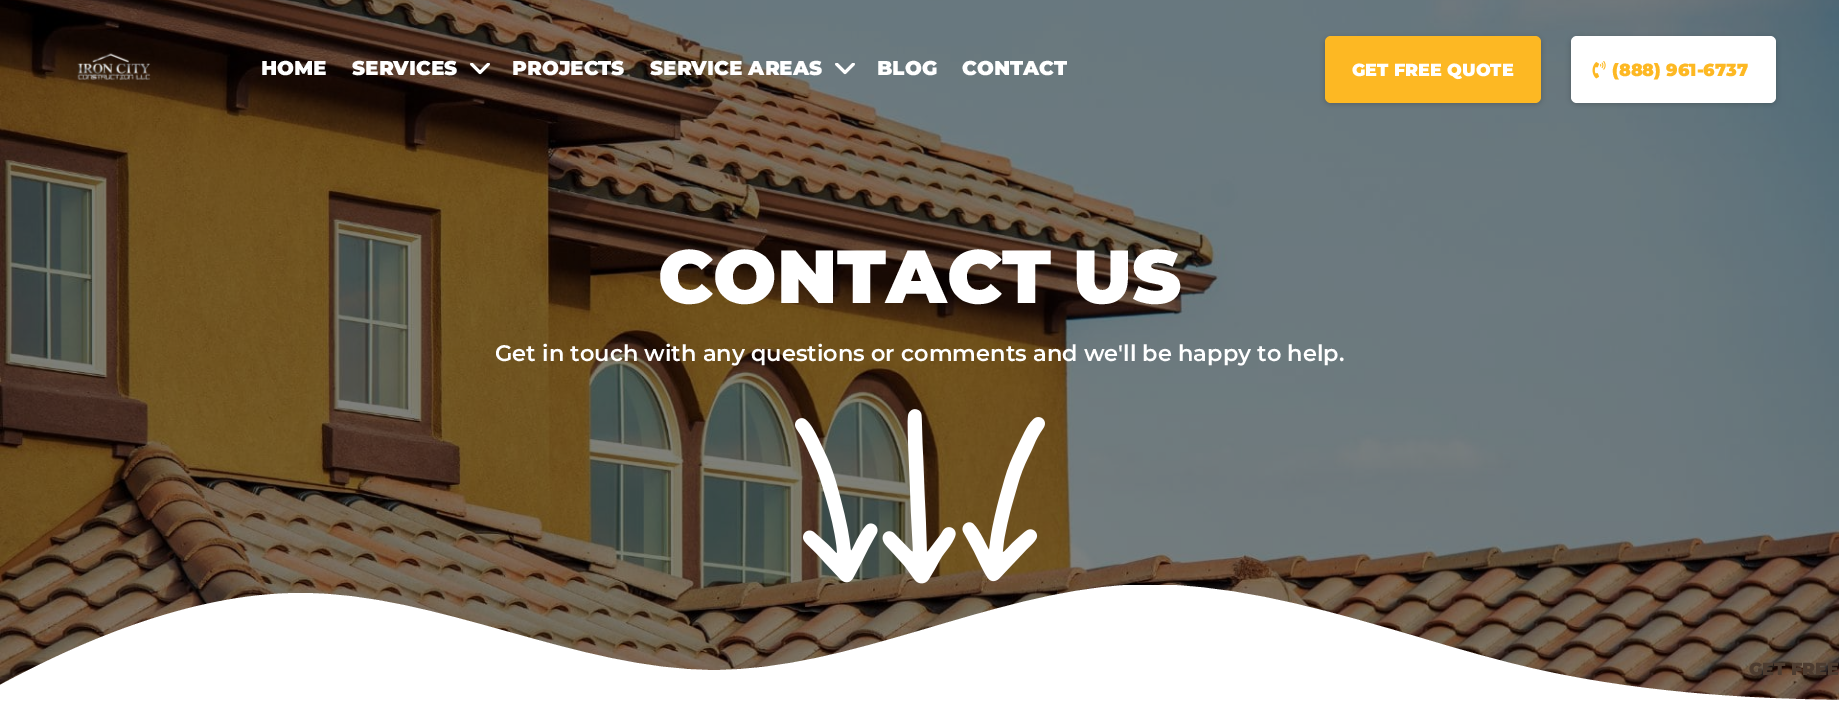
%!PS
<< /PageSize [1839 728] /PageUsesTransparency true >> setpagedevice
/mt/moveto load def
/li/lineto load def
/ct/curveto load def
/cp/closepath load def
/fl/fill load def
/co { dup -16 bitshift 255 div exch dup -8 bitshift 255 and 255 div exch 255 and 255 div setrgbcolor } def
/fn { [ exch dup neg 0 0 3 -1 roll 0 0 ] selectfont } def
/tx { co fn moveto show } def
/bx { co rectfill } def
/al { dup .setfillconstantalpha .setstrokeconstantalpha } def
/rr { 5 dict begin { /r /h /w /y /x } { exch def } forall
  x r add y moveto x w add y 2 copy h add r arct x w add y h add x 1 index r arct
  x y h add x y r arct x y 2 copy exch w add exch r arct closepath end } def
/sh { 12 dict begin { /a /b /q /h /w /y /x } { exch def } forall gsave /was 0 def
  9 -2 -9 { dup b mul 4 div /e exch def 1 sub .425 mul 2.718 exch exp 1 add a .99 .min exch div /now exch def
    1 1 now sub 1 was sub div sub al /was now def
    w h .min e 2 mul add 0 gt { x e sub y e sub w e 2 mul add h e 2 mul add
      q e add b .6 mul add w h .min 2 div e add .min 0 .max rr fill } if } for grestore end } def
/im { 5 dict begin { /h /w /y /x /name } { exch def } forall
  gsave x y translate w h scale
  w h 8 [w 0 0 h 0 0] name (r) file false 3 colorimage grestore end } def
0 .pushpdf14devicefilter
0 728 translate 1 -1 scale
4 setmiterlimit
0 0 1839 728 16#000000 bx
(media/5.raw) 0 0 1839 700 im
(media/1.raw) 77 53 74 27 im
(media/2.raw) 470 63 20 12 im
(media/3.raw) 835 63 20 12 im
1325 38 216 66 6 3 .2 sh
16#FDB823 co
1325 36 216 67 6 rr fl
16#000000 co
1571 38 205 66 6 3 .2 sh
16#FFFFFF co
1571 36 205 67 6 rr fl
(media/4.raw) 1592 61 14 18 im
(media/6.raw) 795 409 250 175 im
-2 686 mt -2 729 li 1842 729 li 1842 700 li 1767 699 1653 695 1540 670 ct 1499 661 1458 649 1418 637 ct 1336 613 1254 589 1172 585 ct 1127 585 li 989 593 851 670 714 670 ct 576 670 438 593 301 593 ct 187 593 72 646 -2 686 ct cp fl
(HOME) 261 75 /Montserrat-Black 20 16#FFFFFF tx
(SERVICES) 352 75 /Montserrat-Black 20 16#FFFFFF tx
(PROJECTS) 512 75 /Montserrat-Black 20 16#FFFFFF tx
(SERVICE AREAS) 650 75 /Montserrat-Black 20 16#FFFFFF tx
(BLOG) 877 75 /Montserrat-Black 20 16#FFFFFF tx
(CONTACT) 962 75 /Montserrat-Black 20 16#FFFFFF tx
(GET FREE QUOTE) 1352 76 /Montserrat-Black 17.5 16#FFFFFF tx
(\(888\) 961-6737) 1612 76 /Montserrat-Black 17.5 16#FDB823 tx
(CONTACT US) 658 303 /Montserrat-Black 75 16#FFFFFF tx
(Get in touch with any questions or comments and we'll be happy to help.) 495 361 /Montserrat-SemiBold 22.5 16#FFFFFF tx
(GET FREE) 1749 675 /Montserrat-Black 17.5 16#4D3C30 tx
.poppdf14devicefilter showpage
